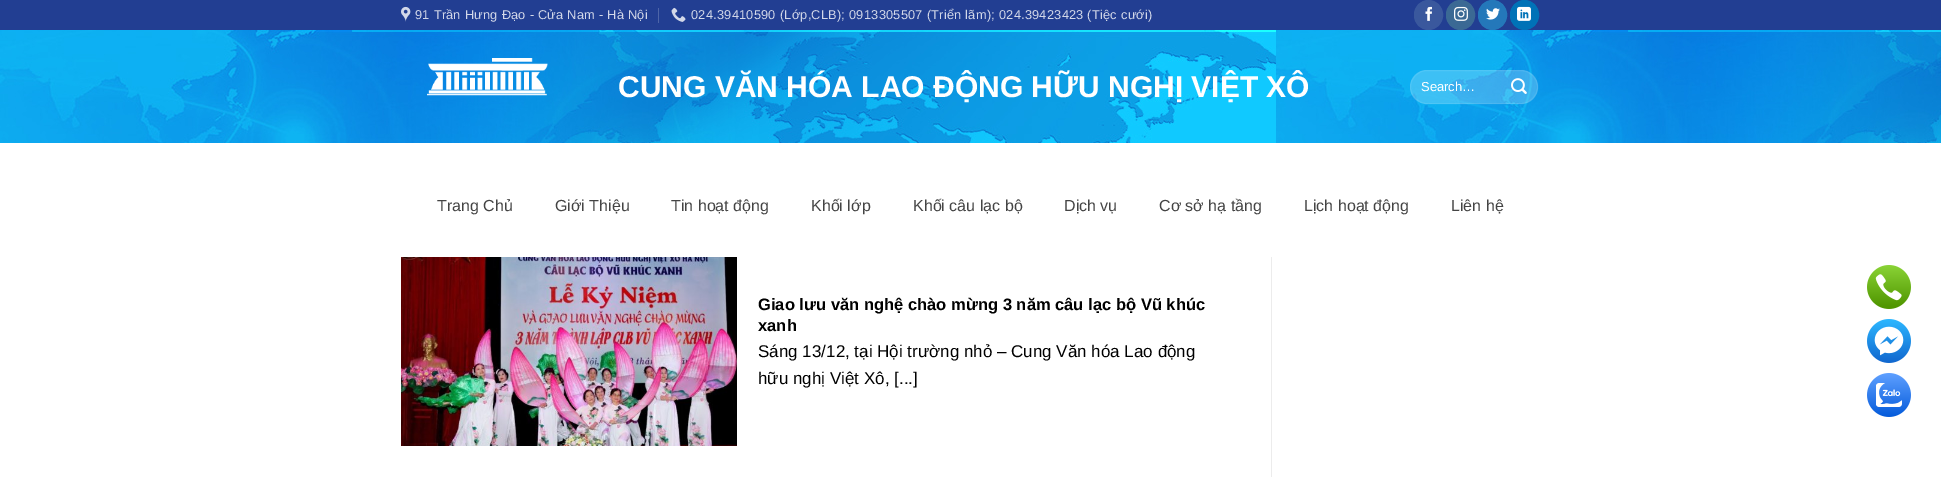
%!PS
<< /PageSize [1941 477] /PageUsesTransparency true >> setpagedevice
/mt/moveto load def
/fl/fill load def
/st/stroke load def
/gs/gsave load def
/gr/grestore load def
/co { dup -16 bitshift 255 div exch dup -8 bitshift 255 and 255 div exch 255 and 255 div setrgbcolor } def
/fn { [ exch dup neg 0 0 3 -1 roll 0 0 ] selectfont } def
/tx { co fn moveto show } def
/bx { co rectfill } def
/al { dup .setfillconstantalpha .setstrokeconstantalpha } def
/rr { 5 dict begin { /r /h /w /y /x } { exch def } forall
  x r add y moveto x w add y 2 copy h add r arct x w add y h add x 1 index r arct
  x y h add x y r arct x y 2 copy exch w add exch r arct closepath end } def
/im { 5 dict begin { /h /w /y /x /name } { exch def } forall
  gsave x y translate w h scale
  w h 8 [w 0 0 h 0 0] name (r) file false 3 colorimage grestore end } def
0 .pushpdf14devicefilter
0 477 translate 1 -1 scale
4 setmiterlimit
0 0 1941 477 16#FFFFFF bx
0 0 1941 30 16#223E92 bx
(media/1.raw) 401 6 10 16 im
658 8 1 15 16#4E65A8 bx
(media/2.raw) 671 7 15 15 im
16#3A589D co
1414.5 .5 28 29 14 rr gs fl gr
st
(media/3.raw) 1425 6 7 15 im
16#3B6994 co
1446.5 .5 28 29 14 rr gs fl gr
st
(media/4.raw) 1454 6 14 15 im
16#2478BA co
1478.5 .5 28 29 14 rr gs fl gr
st
(media/5.raw) 1486 8 14 12 im
16#0072B7 co
1510.5 .5 28 29 14 rr gs fl gr
st
(media/6.raw) 1517 6 14 15 im
(media/7.raw) 0 30 1941 113 im
(media/8.raw) 427 58 121 38 im
0.2 al
16#FFFFFF co
1410 70 128 34 17 rr fl
0.09 al
1410.5 70.5 127 33 16.5 rr st
1 al
(media/9.raw) 1511 78 16 16 im
(media/10.raw) 401 257 336 189 im
1271 257 1 220 16#ECECEC bx
(media/11.raw) 1867 265 44 44 im
(media/12.raw) 1867 319 44 44 im
(media/13.raw) 1867 373 44 44 im
/LiberationSans-Regular 12.8 fn
16#D3D8E9 co
415 19 mt .25 0 (91 Trần Hưng Đạo - Cửa Nam - Hà Nội) ashow
691 19 mt .25 0 (024.39410590 \(Lớp,CLB\); 0913305507 \(Triển lãm\); 024.39423423 \(Tiệc cưới\)) ashow
(CUNG VĂN HÓA LAO ĐỘNG HỮU NGHỊ VIỆT XÔ) 618 97 /LiberationSans-Bold 30 16#FFFFFF tx
(Search…) 1421 91 /LiberationSans-Regular 13 16#FFFFFF tx
(Trang Chủ) 437 211 /LiberationSans-Regular 16 16#444444 tx
(Giới Thiệu) 555 211 /LiberationSans-Regular 16 16#444444 tx
(Tin hoạt động) 671 211 /LiberationSans-Regular 16 16#444444 tx
(Khối lớp) 811 211 /LiberationSans-Regular 16 16#444444 tx
(Khối câu lạc bộ) 913 211 /LiberationSans-Regular 16 16#444444 tx
(Dịch vụ) 1064 211 /LiberationSans-Regular 16 16#444444 tx
(Cơ sở hạ tầng) 1159 211 /LiberationSans-Regular 16 16#444444 tx
(Lịch hoạt động) 1304 211 /LiberationSans-Regular 16 16#444444 tx
(Liên hệ) 1451 211 /LiberationSans-Regular 16 16#444444 tx
(Giao lưu văn nghệ chào mừng 3 năm câu lạc bộ Vũ khúc) 758 310 /LiberationSans-Bold 16.55 16#000000 tx
(xanh) 758 331 /LiberationSans-Bold 16.55 16#000000 tx
(Sáng 13/12, tại Hội trường nhỏ – Cung Văn hóa Lao động) 758 357 /LiberationSans-Regular 17 16#000000 tx
(hữu nghị Việt Xô, [...]) 758 384 /LiberationSans-Regular 17 16#000000 tx
.poppdf14devicefilter showpage
